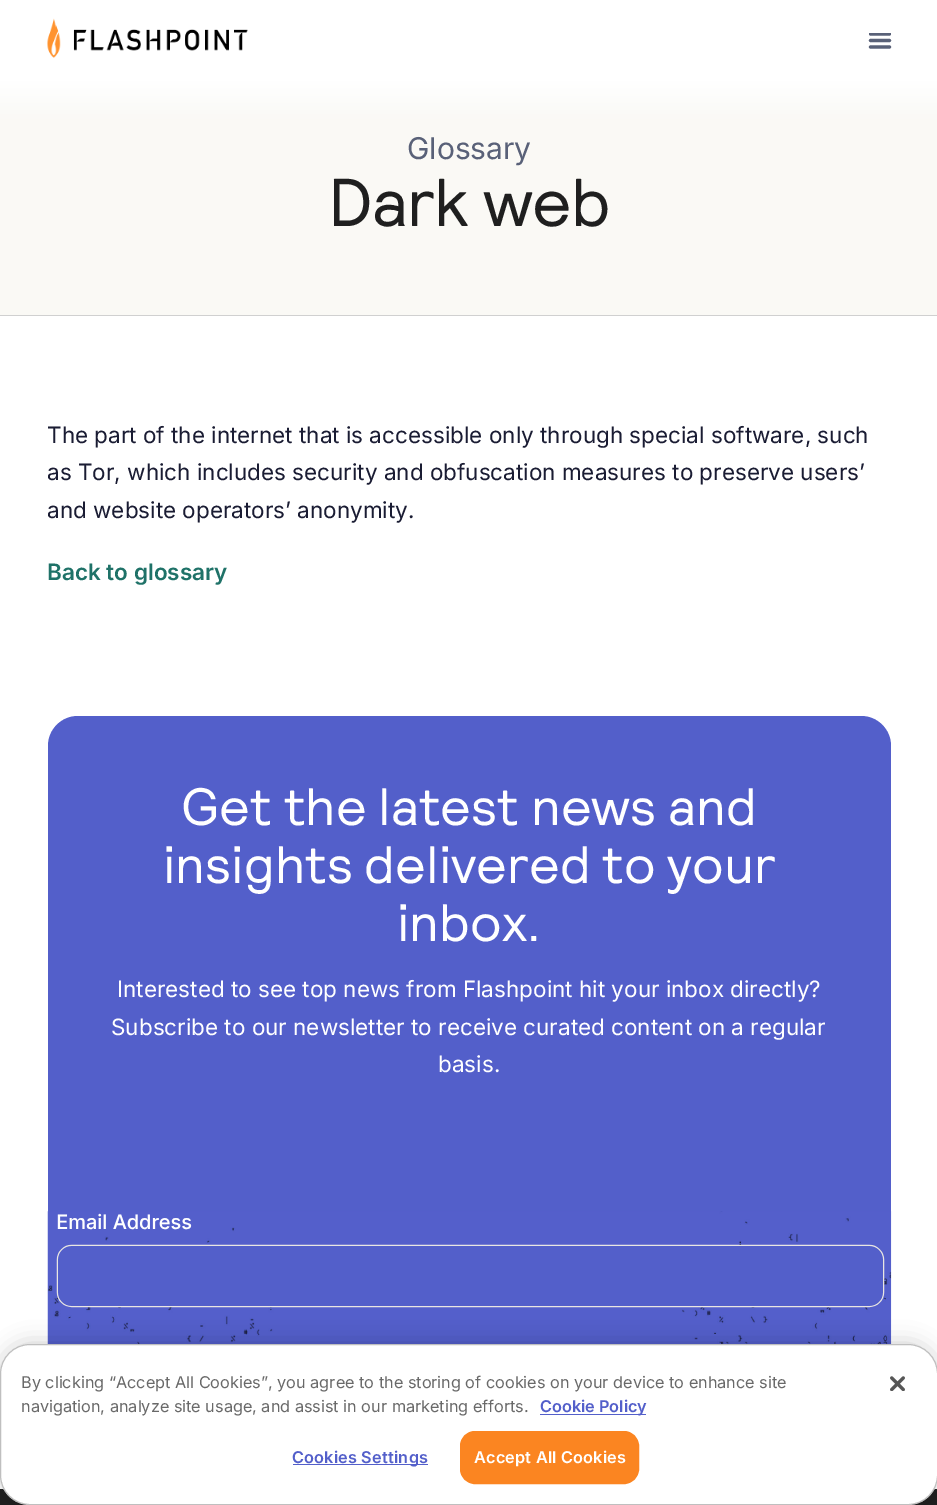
%!PS
<< /PageSize [937 1505] /PageUsesTransparency true >> setpagedevice
/mt/moveto load def
/li/lineto load def
/cp/closepath load def
/fl/fill load def
/st/stroke load def
/gs/gsave load def
/gr/grestore load def
/lw/setlinewidth load def
/co { dup -16 bitshift 255 div exch dup -8 bitshift 255 and 255 div exch 255 and 255 div setrgbcolor } def
/fn { [ exch dup neg 0 0 3 -1 roll 0 0 ] selectfont } def
/tx { co fn moveto show } def
/bx { co rectfill } def
/al { dup .setfillconstantalpha .setstrokeconstantalpha } def
/rr { 5 dict begin { /r /h /w /y /x } { exch def } forall
  x r add y moveto x w add y 2 copy h add r arct x w add y h add x 1 index r arct
  x y h add x y r arct x y 2 copy exch w add exch r arct closepath end } def
/sh { 12 dict begin { /a /b /q /h /w /y /x } { exch def } forall gsave /was 0 def
  9 -2 -9 { dup b mul 4 div /e exch def 1 sub .425 mul 2.718 exch exp 1 add a .99 .min exch div /now exch def
    1 1 now sub 1 was sub div sub al /was now def
    w h .min e 2 mul add 0 gt { x e sub y e sub w e 2 mul add h e 2 mul add
      q e add b .6 mul add w h .min 2 div e add .min 0 .max rr fill } if } for grestore end } def
/im { 5 dict begin { /h /w /y /x /name } { exch def } forall
  gsave x y translate w h scale
  w h 8 [w 0 0 h 0 0] name (r) file false 3 colorimage grestore end } def
0 .pushpdf14devicefilter
0 1505 translate 1 -1 scale
4 setmiterlimit
0 0 937 1505 16#1F1F1F bx
0 0 937 81 16#FFFFFF bx
(media/1.raw) 47 18 201 40 im
gs
869 33 22 16 rectclip
16#596178 co
3.2 lw
1 setlinecap
1 setlinejoin
870.5 34 mt 889.5 34 li st
gr
16#596178 co
3.2 lw
1 setlinecap
1 setlinejoin
870.5 40.5 mt 889.5 40.5 li st
870.5 47 mt 889.5 47 li st
0 316 937 1173 16#FFFFFF bx
gs 0 81 mt 937 81 li 937 315 li 0 315 li cp clip newpath
<< /ShadingType 2 /ColorSpace /DeviceRGB /Coords [469 81 469 315] /Extend [true true] /Function << /FunctionType 3 /Domain [0 1] /Functions [<< /FunctionType 2 /Domain [0 1] /C0 [1 1 1] /C1 [.98 .976 .961] /N 1 >> << /FunctionType 2 /Domain [0 1] /C0 [.98 .976 .961] /C1 [.98 .976 .961] /N 1 >>] /Bounds [.17] /Encode [0 1 0 1] >> >> shfill gr
0 315 937 1 16#D0D0D0 bx
16#535FCA co
48 716 843 673 30 rr fl
(media/2.raw) 47 1211 845 133 im
(media/3.raw) 56 1213 829 95 im
16#000000 co
0 1344 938 161 30 11 .2 sh
16#FFFFFF co
0 1344 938 161 30 rr fl
0.25 al
16#000000 co
1 lw
0 setlinecap
0 setlinejoin
.5 1344.5 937 160 29.5 rr st
1 al
540 1414 106 1 16#535FCA bx
293 1464 135 1 16#535FCA bx
16#FB8521 co
460.5 1431.5 178 52 14.5 rr gs fl gr
st
(media/4.raw) 890 1376 15 15 im
(Glossary) 407 159 /Inter-Regular 30 16#596178 tx
/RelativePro-Regular 67.5 fn
16#1F1F1F co
328 226 mt -.75 0 (Dark web) ashow
(The part of the internet that is accessible only through special software, such) 47 443 /Inter-Regular 22.5 16#1A1C33 tx
(as Tor, which includes security and obfuscation measures to preserve users’) 47 480 /Inter-Regular 22.5 16#1A1C33 tx
(and website operators’ anonymity.) 47 518 /Inter-Regular 22.5 16#1A1C33 tx
(Back to glossary) 47 580 /Inter-SemiBold 22.5 16#1F7268 tx
(Get the latest news and) 181 825 /RelativePro-Regular 52.5 16#FFFFFF tx
(insights delivered to your) 163 883 /RelativePro-Regular 52.5 16#FFFFFF tx
(inbox.) 397 941 /RelativePro-Regular 52.5 16#FFFFFF tx
(Interested to see top news from Flashpoint hit your inbox directly?) 117 997 /Inter-Regular 22.5 16#FFFFFF tx
(Subscribe to our newsletter to receive curated content on a regular) 111 1035 /Inter-Regular 22.5 16#FFFFFF tx
(basis.) 438 1072 /Inter-Regular 22.5 16#FFFFFF tx
(By clicking “Accept All Cookies”, you agree to the storing of cookies on your device to enhance site) 21 1388 /Inter-Regular 16.25 16#696969 tx
(navigation, analyze site usage, and assist in our marketing efforts.) 21 1412 /Inter-Regular 16.25 16#696969 tx
(Cookie Policy) 540 1412 /Inter-SemiBold 16.25 16#535FCA tx
292 1463 mt .2 0 (Cookies Settings) ashow
16#FFFFFF co
474 1463 mt .2 0 (Accept All Cookies) ashow
.poppdf14devicefilter showpage
